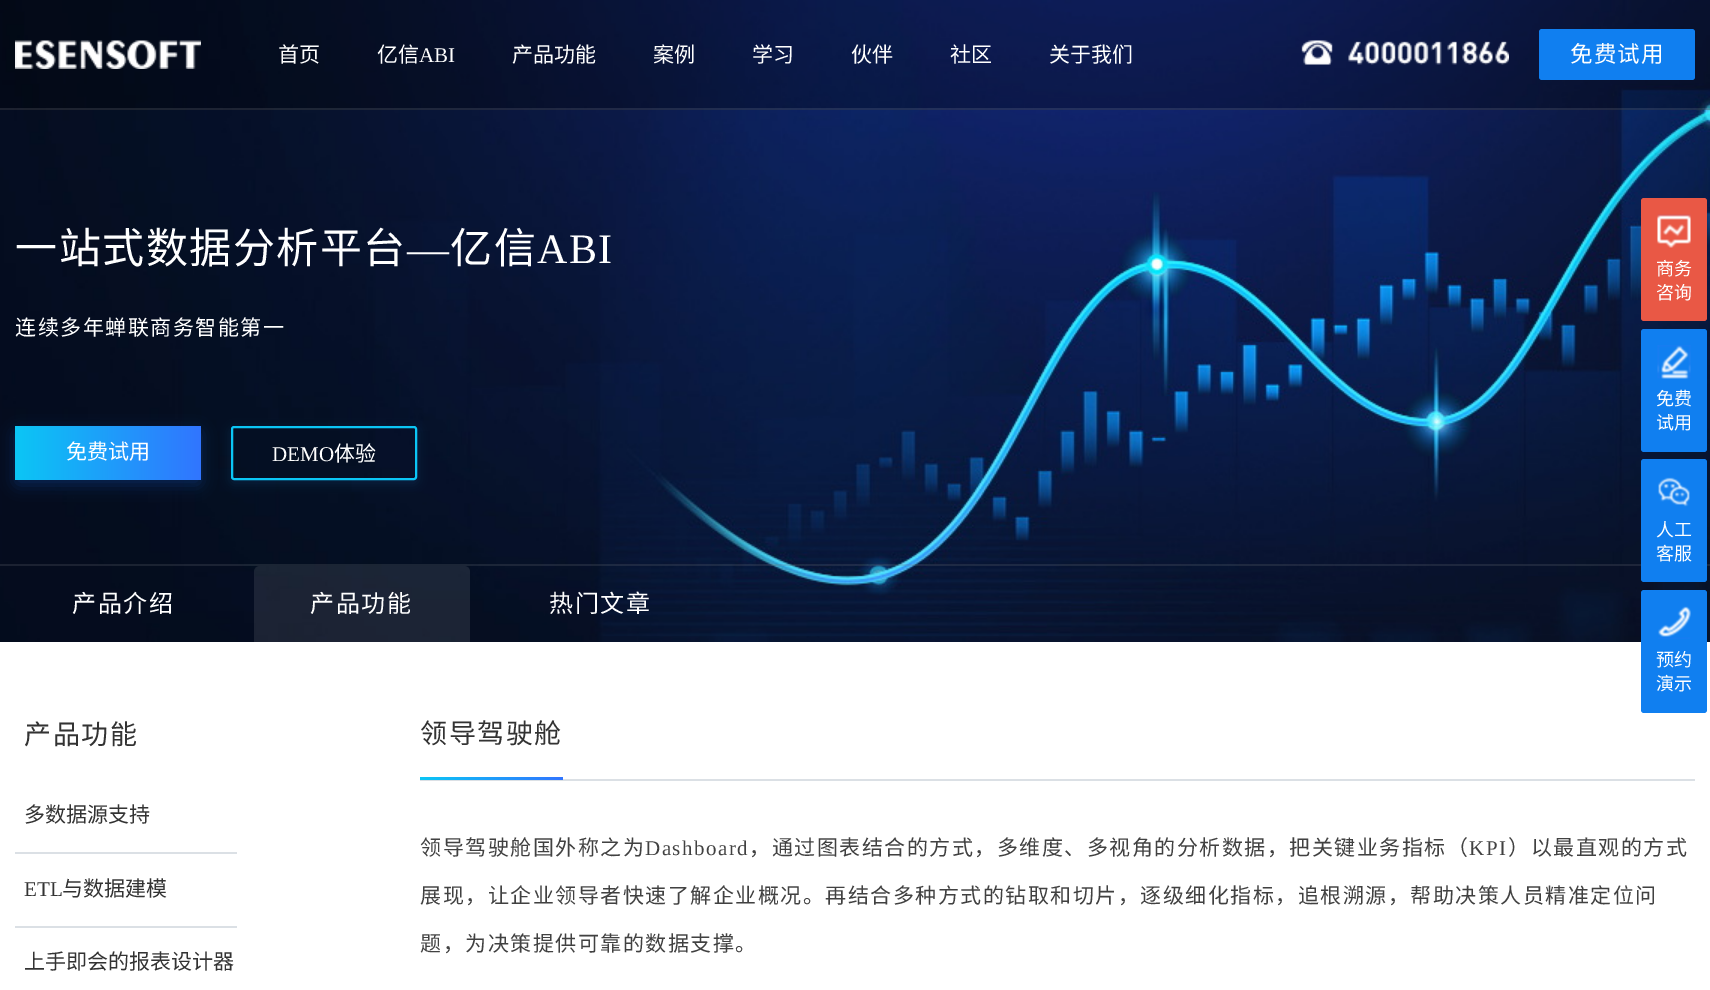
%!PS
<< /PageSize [1710 990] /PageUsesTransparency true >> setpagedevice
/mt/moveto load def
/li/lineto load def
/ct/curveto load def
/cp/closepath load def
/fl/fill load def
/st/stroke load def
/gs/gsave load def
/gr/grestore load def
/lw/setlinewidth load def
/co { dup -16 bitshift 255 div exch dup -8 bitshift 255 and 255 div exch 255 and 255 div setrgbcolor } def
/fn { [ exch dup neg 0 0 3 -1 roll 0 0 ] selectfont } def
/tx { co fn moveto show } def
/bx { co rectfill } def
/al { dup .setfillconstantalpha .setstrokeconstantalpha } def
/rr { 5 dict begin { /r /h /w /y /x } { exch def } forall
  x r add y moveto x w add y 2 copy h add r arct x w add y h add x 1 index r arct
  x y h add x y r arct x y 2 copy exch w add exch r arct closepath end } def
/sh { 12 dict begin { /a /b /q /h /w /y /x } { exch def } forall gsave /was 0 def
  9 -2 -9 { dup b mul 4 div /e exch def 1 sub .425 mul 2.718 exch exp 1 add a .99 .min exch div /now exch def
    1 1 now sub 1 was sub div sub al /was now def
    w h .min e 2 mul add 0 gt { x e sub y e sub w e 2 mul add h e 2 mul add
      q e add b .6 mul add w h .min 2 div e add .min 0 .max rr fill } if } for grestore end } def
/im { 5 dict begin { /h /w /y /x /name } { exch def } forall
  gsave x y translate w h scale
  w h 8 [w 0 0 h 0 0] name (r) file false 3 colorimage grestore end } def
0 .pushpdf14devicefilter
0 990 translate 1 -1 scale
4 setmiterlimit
0 0 1710 990 16#FFFFFF bx
(media/3.raw) 0 0 1710 642 im
0.3 al
0 0 1710 110 16#000000 bx
0.1 al
0 108 1710 2 16#FFFFFF bx
1 al
(media/1.raw) 15 40 186 29 im
(media/2.raw) 1301 40 208 25 im
16#107FF0 co
1539 29 156 51 3 rr fl
16#0C45A3 co
15 431 186 54 3 7.5 .42 sh
gs 15 426 186 54 3 rr clip newpath
<< /ShadingType 2 /ColorSpace /DeviceRGB /Coords [15 453 201 453] /Extend [true true] /Function << /FunctionType 2 /Domain [0 1] /C0 [.043 .776 .961] /C1 [.192 .459 1] /N 1 >> >> shfill gr
gs
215 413 mt 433 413 li 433 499 li 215 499 li cp 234 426 mt 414 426 li 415.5 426 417 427.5 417 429 ct 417 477 li 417 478.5 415.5 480 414 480 ct 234 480 li 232.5 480 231 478.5 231 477 ct 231 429 li 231 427.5 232.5 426 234 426 ct cp eoclip newpath
16#2C94FE co
231 429 186 54 3 5 .13 sh
gr
16#0BC6F5 co
2 lw
232 427 184 52 2 rr st
16#E95845 co
1641 198 66 123 3 rr fl
(media/4.raw) 1657 214 34 34 im
16#107FF0 co
1641 329 66 123 3 rr fl
(media/5.raw) 1657 345 34 34 im
0.2 al
0 564 1710 2 16#777C82 bx
1 al
16#107FF0 co
1641 459 66 123 3 rr fl
(media/6.raw) 1658 477 32 30 im
1641 590 66 123 3 rr fl
(media/7.raw) 1658 606 33 33 im
0.09 al
16#FFFFFF co
260 566 mt 464 566 li 467.5 566 470 568.5 470 572 ct 470 642 li 254 642 li 254 572 li 254 568.5 256.5 566 260 566 ct cp fl
1 al
15 852 222 2 16#DBE0E5 bx
15 926 222 2 16#DBE0E5 bx
420 779 1275 2 16#DBE0E5 bx
gs 420 777 mt 563 777 li 563 780 li 420 780 li cp clip newpath
<< /ShadingType 2 /ColorSpace /DeviceRGB /Coords [420 779 563 779] /Extend [true true] /Function << /FunctionType 2 /Domain [0 1] /C0 [.043 .776 .961] /C1 [.192 .459 1] /N 1 >> >> shfill gr
(首页) 278 62 /NotoSansCJKSC-Regular 21 16#FFFFFF tx
(亿信) 377 62 /NotoSansCJKSC-Regular 21 16#FFFFFF tx
(ABI) 419 62 /LiberationSerif-Regular 21 16#FFFFFF tx
(产品功能) 512 62 /NotoSansCJKSC-Regular 21 16#FFFFFF tx
(案例) 653 62 /NotoSansCJKSC-Regular 21 16#FFFFFF tx
(学习) 752 62 /NotoSansCJKSC-Regular 21 16#FFFFFF tx
(伙伴) 851 62 /NotoSansCJKSC-Regular 21 16#FFFFFF tx
(社区) 950 62 /NotoSansCJKSC-Regular 21 16#FFFFFF tx
(关于我们) 1049 62 /NotoSansCJKSC-Regular 21 16#FFFFFF tx
/NotoSansCJKSC-Regular 22.5 fn
1570 62 mt 1 0 (免费试用) ashow
/NotoSansCJKSC-Regular 42 fn
15 263 mt 1.5 0 (一站式数据分析平台) ashow
/LiberationSerif-Regular 42 fn
407 263 mt 1.5 0 (—) ashow
/NotoSansCJKSC-Regular 42 fn
450 263 mt 1.5 0 (亿信) ashow
/LiberationSerif-Regular 42 fn
537 263 mt 1.5 0 (ABI) ashow
/NotoSansCJKSC-Regular 21 fn
15 335 mt 1.5 0 (连续多年蝉联商务智能第一) ashow
(免费试用) 66 459 /NotoSansCJKSC-Regular 21 16#FFFFFF tx
(DEMO) 272 461 /LiberationSerif-Regular 21 16#FFFFFF tx
(体验) 334 461 /NotoSansCJKSC-Regular 21 16#FFFFFF tx
(商务) 1656 275 /NotoSansCJKSC-Regular 18 16#FFFFFF tx
(咨询) 1656 299 /NotoSansCJKSC-Regular 18 16#FFFFFF tx
(免费) 1656 405 /NotoSansCJKSC-Regular 18 16#FFFFFF tx
(试用) 1656 429 /NotoSansCJKSC-Regular 18 16#FFFFFF tx
(人工) 1656 536 /NotoSansCJKSC-Regular 18 16#FFFFFF tx
(客服) 1656 560 /NotoSansCJKSC-Regular 18 16#FFFFFF tx
(预约) 1656 666 /NotoSansCJKSC-Regular 18 16#FFFFFF tx
(演示) 1656 690 /NotoSansCJKSC-Regular 18 16#FFFFFF tx
/NotoSansCJKSC-Regular 24 fn
72 612 mt 1.5 0 (产品介绍) ashow
310 612 mt 1.5 0 (产品功能) ashow
549 612 mt 1.5 0 (热门文章) ashow
/NotoSansCJKSC-Regular 27 fn
16#333333 co
24 744 mt 1.5 0 (产品功能) ashow
(多数据源支持) 24 822 /NotoSansCJKSC-Regular 21 16#333333 tx
(ETL) 24 896 /LiberationSerif-Regular 21 16#333333 tx
(与数据建模) 62 896 /NotoSansCJKSC-Regular 21 16#333333 tx
(上手即会的报表设计器) 24 969 /NotoSansCJKSC-Regular 21 16#333333 tx
/NotoSansCJKSC-Regular 27 fn
420 743 mt 1.5 0 (领导驾驶舱) ashow
/NotoSansCJKSC-Regular 21 fn
16#414141 co
420 855 mt 1.5 0 (领导驾驶舱国外称之为) ashow
/LiberationSerif-Regular 21 fn
645 855 mt 1.5 0 (Dashboard) ashow
/NotoSansCJKSC-Regular 21 fn
749 855 mt 1.5 0 (，通过图表结合的方式，多维度、多视角的分析数据，把关键业务指标（) ashow
/LiberationSerif-Regular 21 fn
1469 855 mt 1.5 0 (KPI) ashow
/NotoSansCJKSC-Regular 21 fn
1508 855 mt 1.5 0 (）以最直观的方式) ashow
420 903 mt 1.5 0 (展现，让企业领导者快速了解企业概况。再结合多种方式的钻取和切片，逐级细化指标，追根溯源，帮助决策人员精准定位问) ashow
420 951 mt 1.5 0 (题，为决策提供可靠的数据支撑。) ashow
.poppdf14devicefilter showpage
